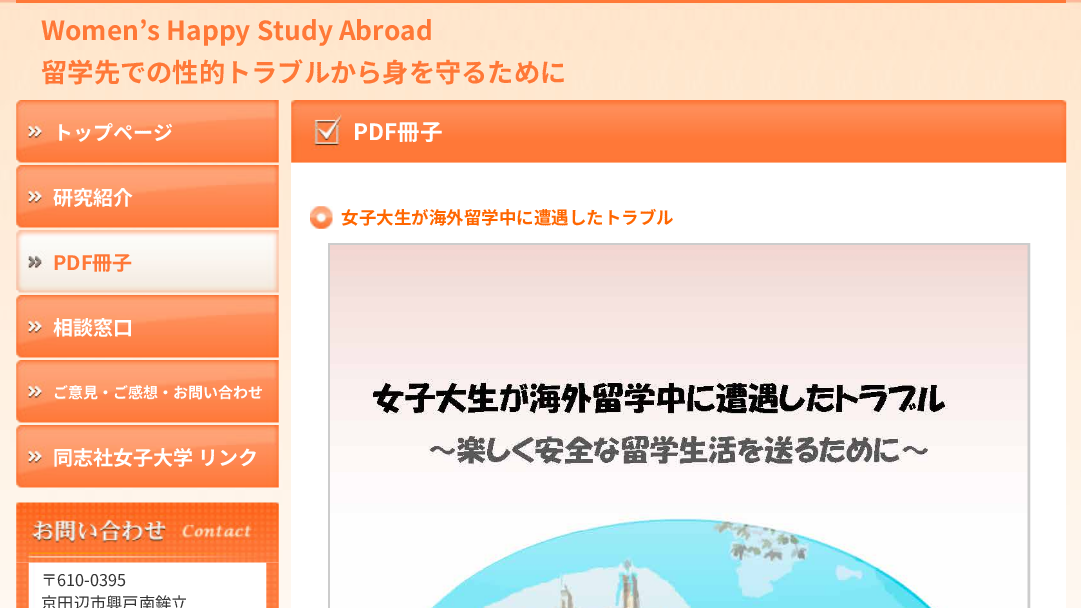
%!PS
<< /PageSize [1081 608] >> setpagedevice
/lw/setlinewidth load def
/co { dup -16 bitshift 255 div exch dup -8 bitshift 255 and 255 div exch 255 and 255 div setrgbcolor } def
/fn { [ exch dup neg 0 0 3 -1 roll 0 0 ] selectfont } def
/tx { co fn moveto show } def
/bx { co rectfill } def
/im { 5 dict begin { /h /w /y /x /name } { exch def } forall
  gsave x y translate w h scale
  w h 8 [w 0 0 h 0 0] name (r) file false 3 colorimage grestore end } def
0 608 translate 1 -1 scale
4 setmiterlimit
0 0 1081 608 16#FFFFFF bx
(media/1.raw) 0 0 1081 608 im
16 0 1050 3 16#FF7837 bx
(media/2.raw) 16 100 263 63 im
(media/3.raw) 16 165 263 63 im
(media/4.raw) 16 230 263 63 im
(media/5.raw) 16 295 263 63 im
(media/6.raw) 16 360 263 63 im
(media/7.raw) 16 425 263 63 im
(media/9.raw) 16 562 263 46 im
(media/8.raw) 16 502 263 61 im
(media/10.raw) 291 100 776 63 im
291 163 775 445 16#FFFFFF bx
(media/11.raw) 310 206 23 23 im
16#CCCCCC co
3 lw
329.5 244.5 699 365 rectstroke
(media/12.raw) 330 245 698 363 im
(Women’s Happy Study Abroad) 41 40 /NotoSansJP-Bold 26.25 16#FF7837 tx
(留学先での性的トラブルから身を守るために) 41 82 /NotoSansJP-Bold 26.25 16#FF7837 tx
(トップページ) 53 140 /NotoSansJP-Bold 20 16#FFFFFF tx
(研究紹介) 53 205 /NotoSansJP-Bold 20 16#FFFFFF tx
(PDF冊子) 53 270 /NotoSansJP-Bold 20 16#FF7837 tx
(相談窓口) 53 335 /NotoSansJP-Bold 20 16#FFFFFF tx
(ご意見・ご感想・お問い合わせ) 53 398 /NotoSansJP-Bold 15 16#FFFFFF tx
(同志社女子大学 リンク) 53 465 /NotoSansJP-Bold 20 16#FFFFFF tx
(〒610-0395) 41 586 /NotoSansJP-Regular 16.25 16#333333 tx
(京田辺市興戸南鉾立) 41 609 /NotoSansJP-Regular 16.25 16#333333 tx
(PDF冊子) 353 140 /NotoSansJP-Bold 22.5 16#FFFFFF tx
(女子大生が海外留学中に遭遇したトラブル) 341 224 /NotoSansJP-Bold 17.5 16#FF6600 tx
showpage
